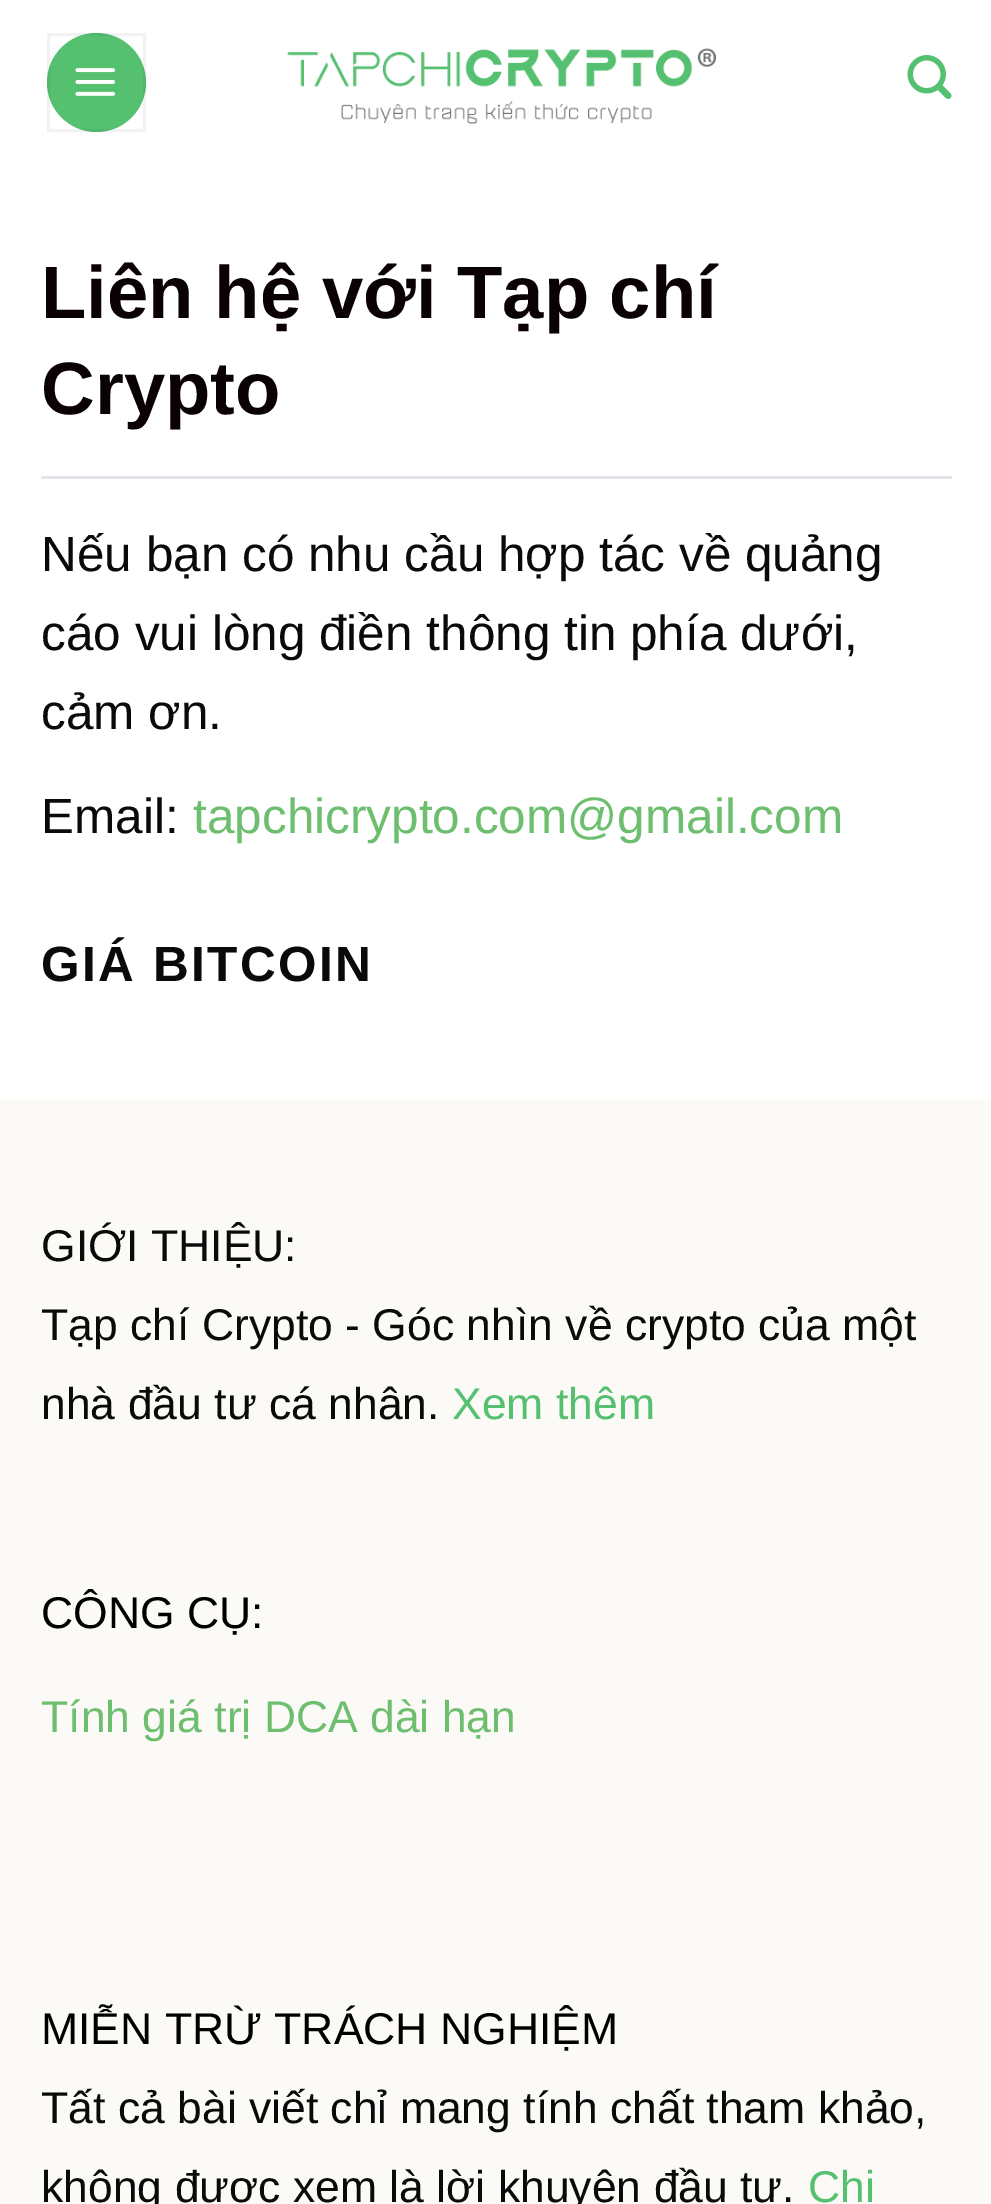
%!PS
<< /PageSize [991 2204] /PageUsesTransparency true >> setpagedevice
/mt/moveto load def
/fl/fill load def
/lw/setlinewidth load def
/co { dup -16 bitshift 255 div exch dup -8 bitshift 255 and 255 div exch 255 and 255 div setrgbcolor } def
/fn { [ exch dup neg 0 0 3 -1 roll 0 0 ] selectfont } def
/tx { co fn moveto show } def
/bx { co rectfill } def
/al { dup .setfillconstantalpha .setstrokeconstantalpha } def
/ci { newpath 0 360 arc closepath } def
/im { 5 dict begin { /h /w /y /x /name } { exch def } forall
  gsave x y translate w h scale
  w h 8 [w 0 0 h 0 0] name (r) file false 3 colorimage grestore end } def
0 .pushpdf14devicefilter
0 2204 translate 1 -1 scale
4 setmiterlimit
0 0 991 2204 16#FFFFFF bx
16#54C070 co
96.5 82.5 49.5 ci fl
0.05 al
16#000000 co
3 lw
48.5 34.5 96 96 rectstroke
1 al
(media/1.raw) 75 68 41 28 im
(media/2.raw) 287 48 429 76 im
(media/3.raw) 907 55 45 44 im
41 476 911 3 16#E1E5E9 bx
0 1100 991 1104 16#FCFAF6 bx
(Liên hệ với Tạp chí) 41 318 /LiberationSans-Bold 74.25 16#0A0103 tx
(Crypto) 41 414 /LiberationSans-Bold 74.25 16#0A0103 tx
(Nếu bạn có nhu cầu hợp tác về quảng) 41 571 /LiberationSans-Regular 49.5 16#0A0A0A tx
(cáo vui lòng điền thông tin phía dưới,) 41 650 /LiberationSans-Regular 49.5 16#0A0A0A tx
(cảm ơn.) 41 729 /LiberationSans-Regular 49.5 16#0A0A0A tx
(Email:) 41 833 /LiberationSans-Regular 49.5 16#0A0A0A tx
(tapchicrypto.com@gmail.com) 193 833 /LiberationSans-Regular 49.5 16#6DBE6F tx
/LiberationSans-Bold 49.5 fn
16#0A0A0A co
41 981 mt 2.5 0 (GIÁ BITCOIN) ashow
(GIỚI THIỆU:) 41 1261 /LiberationSans-Regular 44.5 16#0A0A0A tx
(Tạp chí Crypto - Góc nhìn về crypto của một) 41 1340 /LiberationSans-Regular 44.5 16#0A0A0A tx
(nhà đầu tư cá nhân.) 41 1419 /LiberationSans-Regular 44.5 16#0A0A0A tx
(Xem thêm) 452 1419 /LiberationSans-Regular 44.5 16#54C070 tx
(CÔNG CỤ:) 41 1628 /LiberationSans-Regular 44.5 16#000000 tx
(Tính giá trị DCA dài hạn) 41 1732 /LiberationSans-Regular 44.5 16#6DBE6F tx
(MIỄN TRỪ TRÁCH NGHIỆM) 41 2044 /LiberationSans-Regular 44.5 16#000000 tx
(Tất cả bài viết chỉ mang tính chất tham khảo,) 41 2123 /LiberationSans-Regular 44.5 16#0A0A0A tx
(không được xem là lời khuyên đầu tư.) 41 2202 /LiberationSans-Regular 44.5 16#0A0A0A tx
(Chi) 808 2202 /LiberationSans-Regular 44.5 16#54C070 tx
.poppdf14devicefilter showpage
